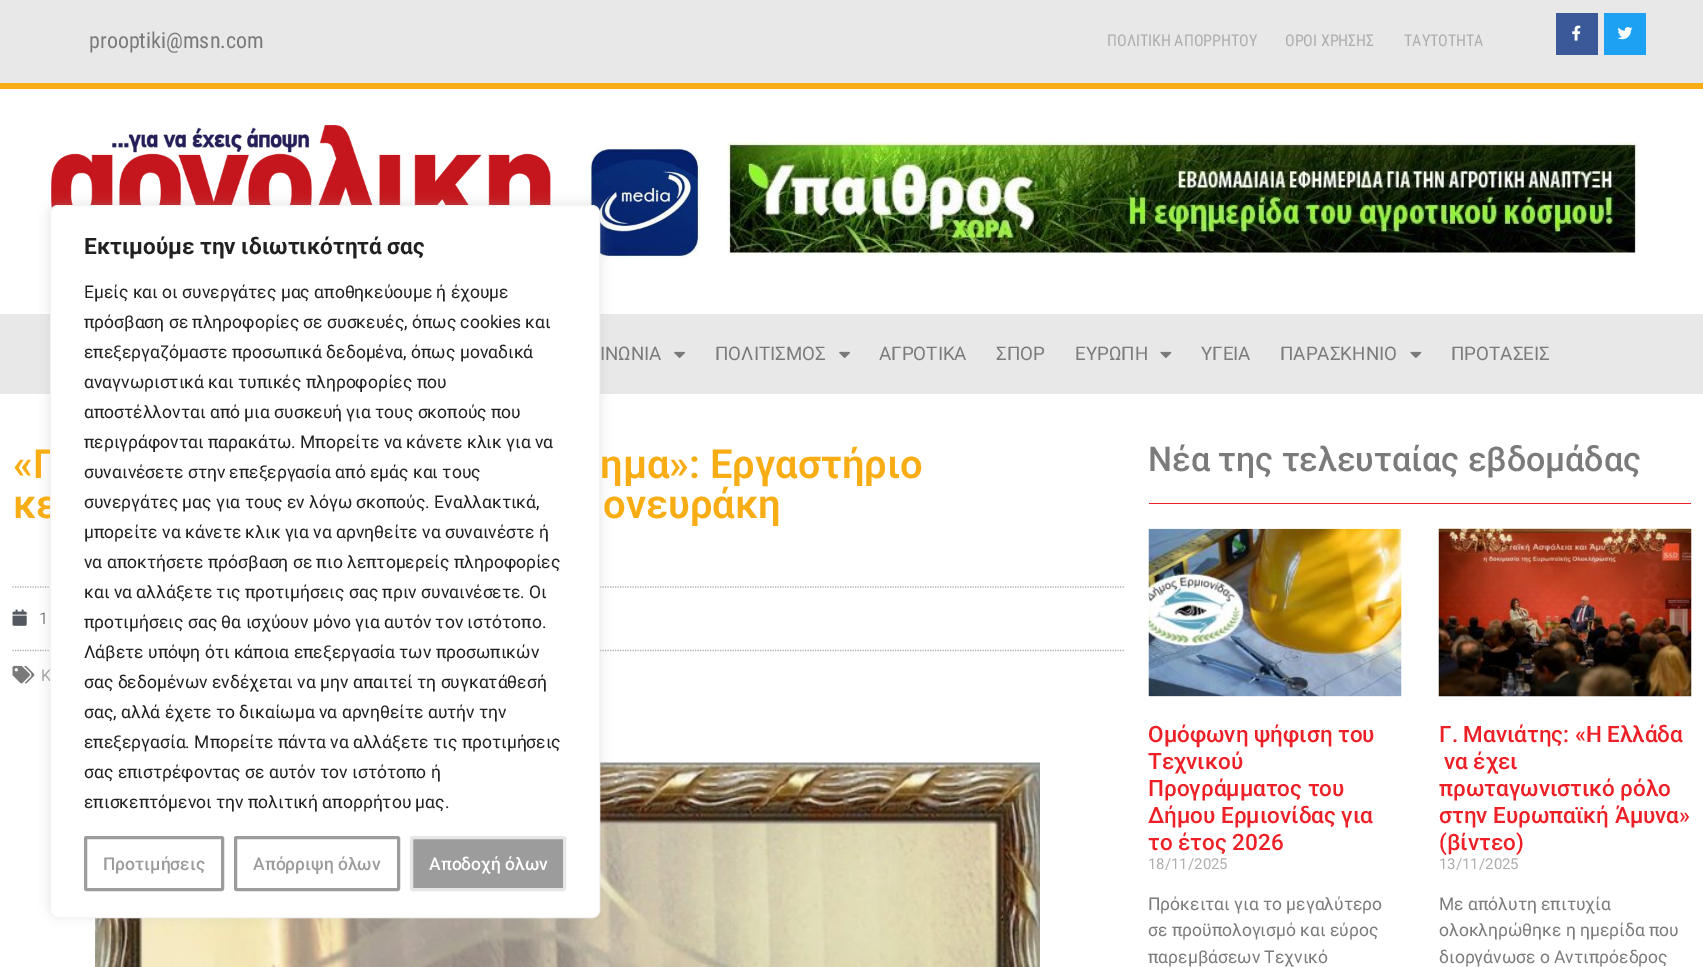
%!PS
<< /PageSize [1703 967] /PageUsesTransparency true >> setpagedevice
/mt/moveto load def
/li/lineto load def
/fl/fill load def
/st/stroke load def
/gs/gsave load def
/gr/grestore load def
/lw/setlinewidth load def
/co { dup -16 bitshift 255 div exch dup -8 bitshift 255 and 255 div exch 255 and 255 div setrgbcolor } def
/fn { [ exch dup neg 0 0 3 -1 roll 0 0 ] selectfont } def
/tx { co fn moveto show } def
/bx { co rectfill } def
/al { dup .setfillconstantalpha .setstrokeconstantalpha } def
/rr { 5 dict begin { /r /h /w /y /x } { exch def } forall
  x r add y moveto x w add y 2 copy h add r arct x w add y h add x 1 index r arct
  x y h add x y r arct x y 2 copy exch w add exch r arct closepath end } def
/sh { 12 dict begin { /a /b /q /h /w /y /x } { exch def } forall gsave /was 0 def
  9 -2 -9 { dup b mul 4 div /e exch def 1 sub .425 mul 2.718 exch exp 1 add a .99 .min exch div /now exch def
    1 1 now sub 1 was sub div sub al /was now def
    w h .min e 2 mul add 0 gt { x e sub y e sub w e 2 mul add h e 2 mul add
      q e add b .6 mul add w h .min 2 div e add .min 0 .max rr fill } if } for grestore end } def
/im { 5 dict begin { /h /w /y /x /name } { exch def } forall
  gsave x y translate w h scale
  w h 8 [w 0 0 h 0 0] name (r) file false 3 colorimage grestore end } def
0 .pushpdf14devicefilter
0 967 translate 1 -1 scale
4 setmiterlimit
0 0 1703 967 16#FFFFFF bx
0 0 1703 83 16#E8E8E8 bx
1556 13 42 42 16#3B5998 bx
(media/1.raw) 1572 25 9 16 im
1604 13 42 42 16#1DA1F2 bx
(media/2.raw) 1617 27 16 13 im
0 83 1703 6 16#F9AD15 bx
(media/3.raw) 51 125 501 85 im
(media/4.raw) 586 148 115 112 im
(media/5.raw) 727 142 911 113 im
0 314 1703 80 16#E8E8E8 bx
(media/6.raw) 674 351 11 7 im
(media/6.raw) 839 351 11 7 im
(media/7.raw) 1160 351 12 7 im
(media/7.raw) 1410 351 12 7 im
16#AFAFAF co
1.2 lw
[1.25 1.25] 0 setdash
12.5 587 mt 1124 587 li st
12.5 650.5 mt 1124 650.5 li st
(media/9.raw) 12 665 23 19 im
(media/10.raw) 95 762 945 205 im
16#ACABAB co
50 204 550 712 8 6 .3 sh
(media/8.raw) 12 609 15 17 im
1149 503 542 1 16#EC2026 bx
(media/11.raw) 1148 528 254 169 im
(media/12.raw) 1438 528 254 169 im
(prooptiki@msn.com) 89 48 /RobotoCondensed-Regular 22 16#7B7B7B tx
(ΠΟΛΙΤΙΚΗ ΑΠΟΡΡΗΤΟΥ) 1107 46 /RobotoCondensed-Regular 16 16#ADADAD tx
(ΟΡΟΙ ΧΡΗΣΗΣ) 1285 46 /RobotoCondensed-Regular 16 16#ADADAD tx
(TAYTOTHTA) 1404 46 /RobotoCondensed-Regular 16 16#ADADAD tx
(ΙΝΩΝΙΑ) 600 360 /Roboto-Regular 18.75 16#7B7B7B tx
(ΠΟΛΙΤΙΣΜΟΣ) 715 360 /Roboto-Regular 18.75 16#7B7B7B tx
(ΑΓΡΟΤΙΚΑ) 879 360 /Roboto-Regular 18.75 16#7B7B7B tx
(ΣΠΟΡ) 996 360 /Roboto-Regular 18.75 16#7B7B7B tx
(ΕΥΡΩΠΗ) 1075 360 /Roboto-Regular 18.75 16#7B7B7B tx
(ΥΓΕΙΑ) 1201 360 /Roboto-Regular 18.75 16#7B7B7B tx
(ΠΑΡΑΣΚΗΝΙΟ) 1280 360 /Roboto-Regular 18.75 16#7B7B7B tx
(ΠΡΟΤΑΣΕΙΣ) 1451 360 /Roboto-Regular 18.75 16#7B7B7B tx
(«Γ) 13 478 /Roboto-SemiBold 40 16#F9AD15 tx
(ημα»: Εργαστήριο) 600 478 /Roboto-SemiBold 40 16#F9AD15 tx
(κε) 13 518 /Roboto-SemiBold 40 16#F9AD15 tx
(ονευράκη) 603 518 /Roboto-SemiBold 40 16#F9AD15 tx
(1) 39 624 /Roboto-Light 16 16#54595F tx
(Κ) 41 681 /Roboto-Regular 16 16#A3A3A3 tx
16#FFFFFF co
50.5 205.5 549 712 7.5 rr gs fl gr
16#F4F4F4 co
1 lw
[] 0 setdash
st
16#9C9C9C co
411.5 837.5 153 52 1 rr gs fl gr
16#E6E6E6 co
3 lw
st
(Αποδοχή όλων) 429 870 /Roboto-Medium 17.5 16#FFFFFF tx
16#9C9C9C co
235.5 837.5 163 52 1 rr st
(Απόρριψη όλων) 253 870 /Roboto-Medium 17.5 16#9C9C9C tx
85.5 837.5 137 52 1 rr st
(Προτιμήσεις) 103 870 /Roboto-Medium 17.5 16#9C9C9C tx
(επισκεπτόμενοι την πολιτική απορρήτου μας.) 84 808 /Roboto-Regular 17.5 16#212121 tx
(σας επιστρέφοντας σε αυτόν τον ιστότοπο ή) 84 778 /Roboto-Regular 17.5 16#212121 tx
(επεξεργασία. Μπορείτε πάντα να αλλάξετε τις προτιμήσεις) 84 748 /Roboto-Regular 17.5 16#212121 tx
(σας, αλλά έχετε το δικαίωμα να αρνηθείτε αυτήν την) 84 718 /Roboto-Regular 17.5 16#212121 tx
(σας δεδομένων ενδέχεται να μην απαιτεί τη συγκατάθεσή) 84 688 /Roboto-Regular 17.5 16#212121 tx
(Λάβετε υπόψη ότι κάποια επεξεργασία των προσωπικών) 84 658 /Roboto-Regular 17.5 16#212121 tx
(προτιμήσεις σας θα ισχύουν μόνο για αυτόν τον ιστότοπο.) 84 628 /Roboto-Regular 17.5 16#212121 tx
(και να αλλάξετε τις προτιμήσεις σας πριν συναινέσετε. Οι) 84 598 /Roboto-Regular 17.5 16#212121 tx
(να αποκτήσετε πρόσβαση σε πιο λεπτομερείς πληροφορίες) 84 568 /Roboto-Regular 17.5 16#212121 tx
(μπορείτε να κάνετε κλικ για να αρνηθείτε να συναινέστε ή) 84 538 /Roboto-Regular 17.5 16#212121 tx
(συνεργάτες μας για τους εν λόγω σκοπούς. Εναλλακτικά,) 84 508 /Roboto-Regular 17.5 16#212121 tx
(συναινέσετε στην επεξεργασία από εμάς και τους) 84 478 /Roboto-Regular 17.5 16#212121 tx
(περιγράφονται παρακάτω. Μπορείτε να κάνετε κλικ για να) 84 448 /Roboto-Regular 17.5 16#212121 tx
(αποστέλλονται από μια συσκευή για τους σκοπούς που) 84 418 /Roboto-Regular 17.5 16#212121 tx
(αναγνωριστικά και τυπικές πληροφορίες που) 84 388 /Roboto-Regular 17.5 16#212121 tx
(επεξεργαζόμαστε προσωπικά δεδομένα, όπως μοναδικά) 84 358 /Roboto-Regular 17.5 16#212121 tx
(πρόσβαση σε πληροφορίες σε συσκευές, όπως cookies και) 84 328 /Roboto-Regular 17.5 16#212121 tx
(Εμείς και οι συνεργάτες μας αποθηκεύουμε ή έχουμε) 84 298 /Roboto-Regular 17.5 16#212121 tx
(Εκτιμούμε την ιδιωτικότητά σας) 84 254 /Roboto-Bold 22.5 16#212121 tx
(Νέα της τελευταίας εβδομάδας) 1148 471 /Roboto-Medium 34 16#7B7B7B tx
(Ομόφωνη ψήφιση του) 1148 742 /Roboto-Medium 22.5 16#EC2026 tx
(Τεχνικού) 1148 769 /Roboto-Medium 22.5 16#EC2026 tx
(Προγράμματος του) 1148 796 /Roboto-Medium 22.5 16#EC2026 tx
(Δήμου Ερμιονίδας για) 1148 823 /Roboto-Medium 22.5 16#EC2026 tx
(το έτος 2026) 1148 850 /Roboto-Medium 22.5 16#EC2026 tx
(18/11/2025) 1148 869 /Roboto-Regular 15 16#ADADAD tx
(Πρόκειται για το μεγαλύτερο) 1148 910 /Roboto-Regular 17.5 16#7B7B7B tx
(σε προϋπολογισμό και εύρος) 1148 936 /Roboto-Regular 17.5 16#7B7B7B tx
(παρεμβάσεων Τεχνικό) 1148 963 /Roboto-Regular 17.5 16#7B7B7B tx
(Γ. Μανιάτης: «Η Ελλάδα) 1439 742 /Roboto-Medium 22.5 16#EC2026 tx
(να έχει) 1444 769 /Roboto-Medium 22.5 16#EC2026 tx
(πρωταγωνιστικό ρόλο) 1439 796 /Roboto-Medium 22.5 16#EC2026 tx
(στην Ευρωπαϊκή Άμυνα») 1439 823 /Roboto-Medium 22.5 16#EC2026 tx
(\(βίντεο\)) 1439 850 /Roboto-Medium 22.5 16#EC2026 tx
(13/11/2025) 1439 869 /Roboto-Regular 15 16#ADADAD tx
(Με απόλυτη επιτυχία) 1439 910 /Roboto-Regular 17.5 16#7B7B7B tx
(ολοκληρώθηκε η ημερίδα που) 1439 936 /Roboto-Regular 17.5 16#7B7B7B tx
(διοργάνωσε ο Αντιπρόεδρος) 1439 963 /Roboto-Regular 17.5 16#7B7B7B tx
.poppdf14devicefilter showpage
